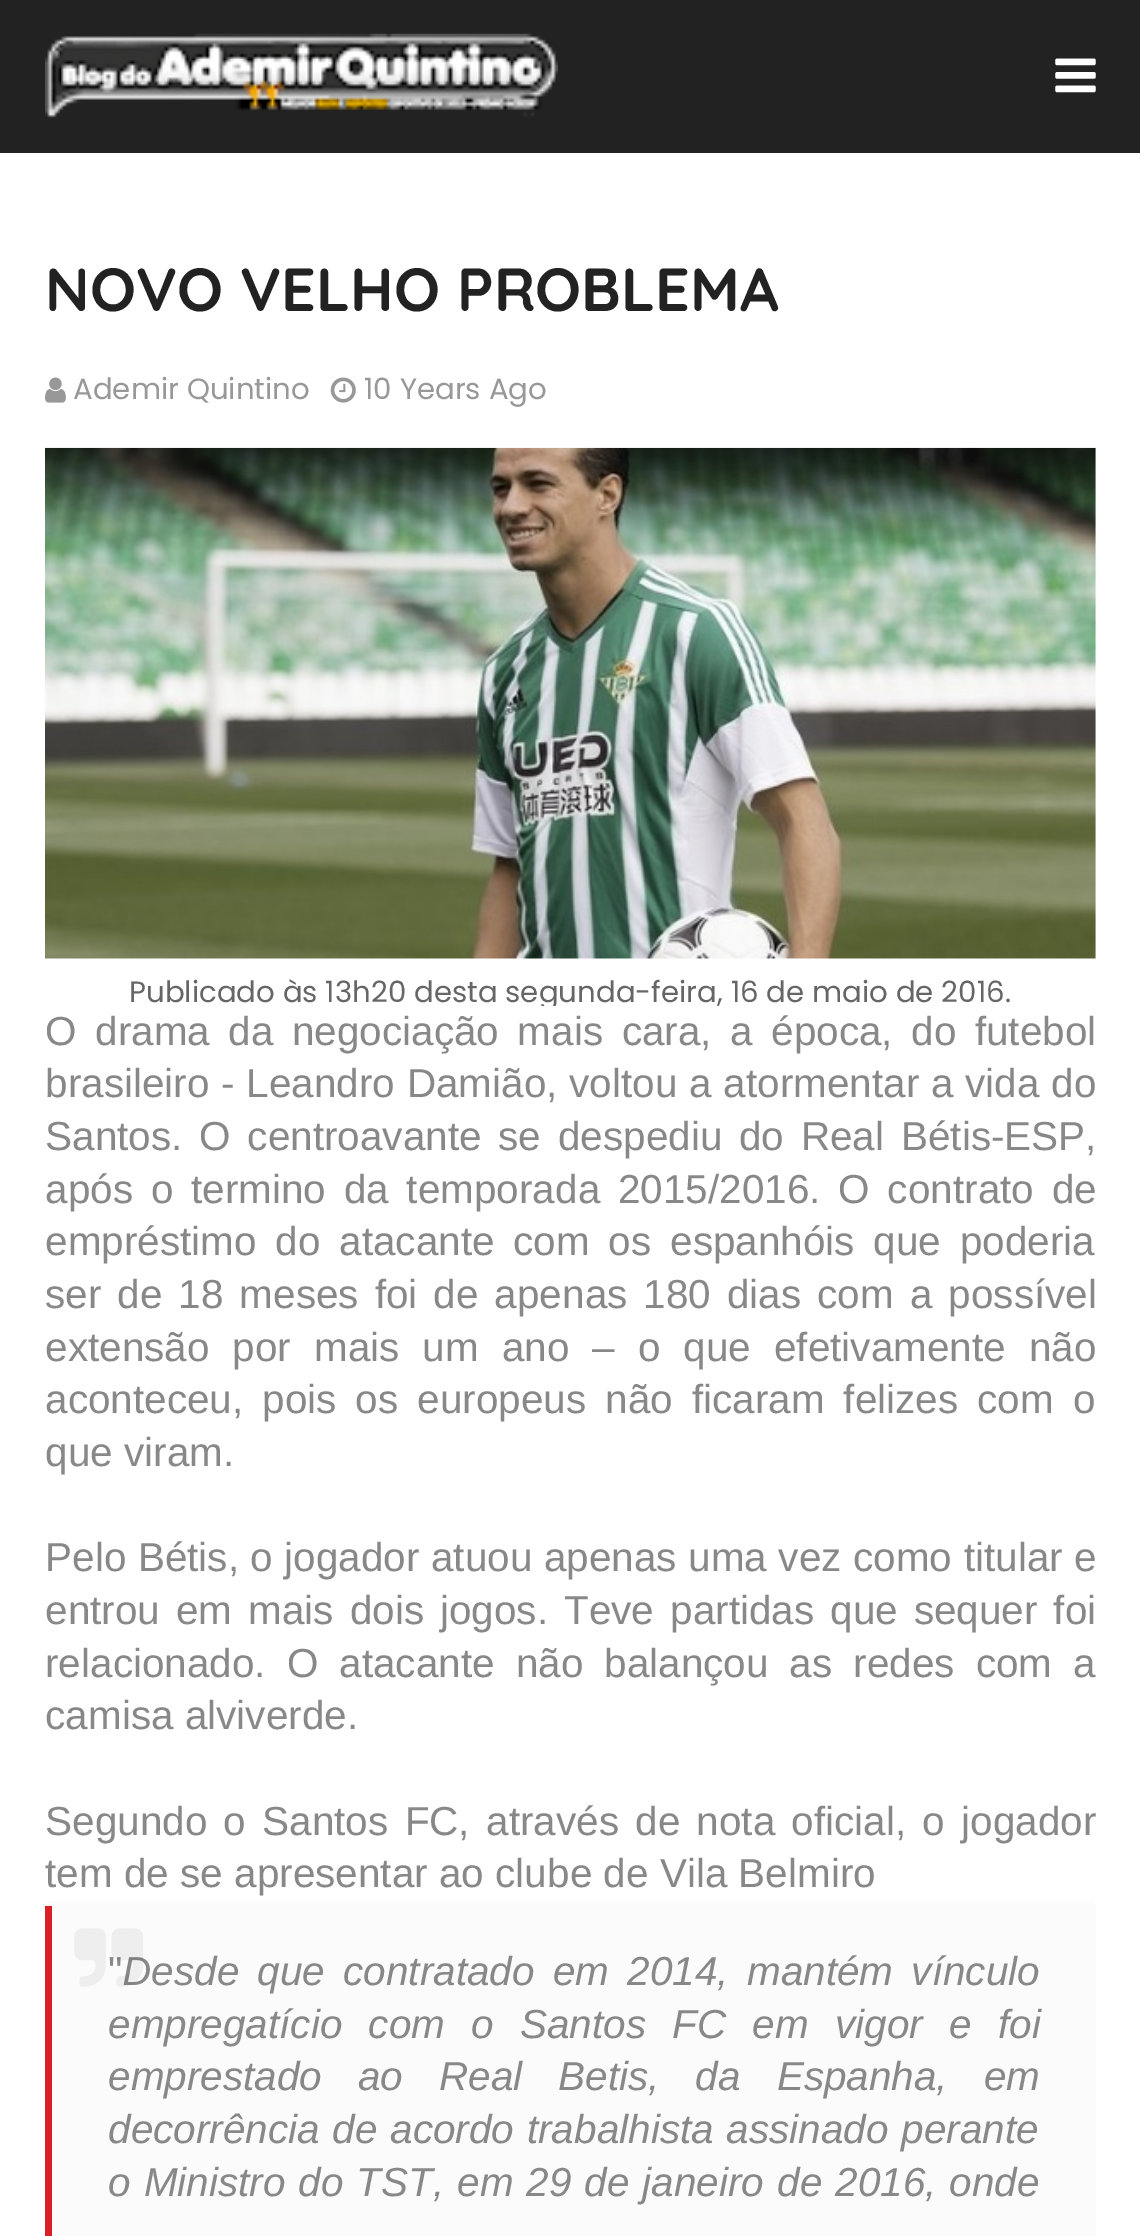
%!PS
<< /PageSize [1140 2236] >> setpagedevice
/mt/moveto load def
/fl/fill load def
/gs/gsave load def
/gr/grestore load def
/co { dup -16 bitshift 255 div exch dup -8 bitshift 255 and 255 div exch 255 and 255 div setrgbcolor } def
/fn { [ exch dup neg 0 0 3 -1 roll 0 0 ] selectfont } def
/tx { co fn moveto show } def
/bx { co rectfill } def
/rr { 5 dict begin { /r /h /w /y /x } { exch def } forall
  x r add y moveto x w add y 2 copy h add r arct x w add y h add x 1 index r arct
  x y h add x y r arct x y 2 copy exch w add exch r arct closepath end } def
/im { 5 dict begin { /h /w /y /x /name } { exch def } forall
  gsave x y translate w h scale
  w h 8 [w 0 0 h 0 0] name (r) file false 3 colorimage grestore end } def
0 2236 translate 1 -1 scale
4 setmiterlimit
0 0 1140 2236 16#FFFFFF bx
0 0 1140 153 16#222222 bx
(media/1.raw) 45 33 513 85 im
(media/2.raw) 1055 58 41 35 im
(media/3.raw) 45 377 21 26 im
(media/4.raw) 330 377 26 26 im
(media/5.raw) 45 447 1051 512 im
16#FBFBFB co
45 1901 1051 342 7 rr fl
45 1906 7 330 16#DA1F26 bx
(NOVO VELHO PROBLEMA) 45 311 /Quicksand-Bold 60.75 16#222222 tx
(Ademir Quintino) 73 399 /Poppins-Regular 29.25 16#989898 tx
(10 Years Ago) 364 399 /Poppins-Regular 29.25 16#989898 tx
gs
45 448 1051 558 rectclip
(Publicado às 13h20 desta segunda-feira, 16 de maio de 2016.) 129 1002 /Poppins-Regular 29.25 16#666666 tx
gr
/LiberationSans-Regular 40.5 fn
16#888888 co
45 1045 mt 7.25 0 32 (O drama da negociação mais cara, a época, do futebol) widthshow
45 1097 mt .5 0 32 (brasileiro - Leandro Damião, voltou a atormentar a vida do) widthshow
45 1150 mt 5.5 0 32 (Santos. O centroavante se despediu do Real Bétis-ESP,) widthshow
45 1203 mt 6.5 0 32 (após o termino da temporada 2015/2016. O contrato de) widthshow
45 1255 mt 7.5 0 32 (empréstimo do atacante com os espanhóis que poderia) widthshow
45 1308 mt 4.75 0 32 (ser de 18 meses foi de apenas 180 dias com a possível) widthshow
45 1361 mt 11.75 0 32 (extensão por mais um ano – o que efetivamente não) widthshow
45 1413 mt 7.75 0 32 (aconteceu, pois os europeus não ficaram felizes com o) widthshow
(que viram.) 45 1466 /LiberationSans-Regular 40.5 16#888888 tx
45 1571 mt .25 0 32 (Pelo Bétis, o jogador atuou apenas uma vez como titular e) widthshow
45 1624 mt 4.75 0 32 (entrou em mais dois jogos. Teve partidas que sequer foi) widthshow
45 1677 mt 9.75 0 32 (relacionado. O atacante não balançou as redes com a) widthshow
(camisa alviverde.) 45 1729 /LiberationSans-Regular 40.5 16#888888 tx
45 1835 mt 5 0 32 (Segundo o Santos FC, através de nota oficial, o jogador) widthshow
(tem de se apresentar ao clube de Vila Belmiro) 45 1887 /LiberationSans-Regular 40.5 16#888888 tx
/LiberationSans-Italic 40.5 fn
122 1985 mt 7 0 32 (Desde que contratado em 2014, mantém vínculo) widthshow
(") 108 1985 /LiberationSans-Regular 40.5 16#888888 tx
(media/6.raw) 74 1928 69 59 im
/LiberationSans-Italic 40.5 fn
108 2038 mt 15 0 32 (empregatício com o Santos FC em vigor e foi) widthshow
108 2090 mt 24.75 0 32 (emprestado ao Real Betis, da Espanha, em) widthshow
108 2143 mt 1.5 0 32 (decorrência de acordo trabalhista assinado perante) widthshow
108 2196 mt 1.75 0 32 (o Ministro do TST, em 29 de janeiro de 2016, onde) widthshow
showpage
